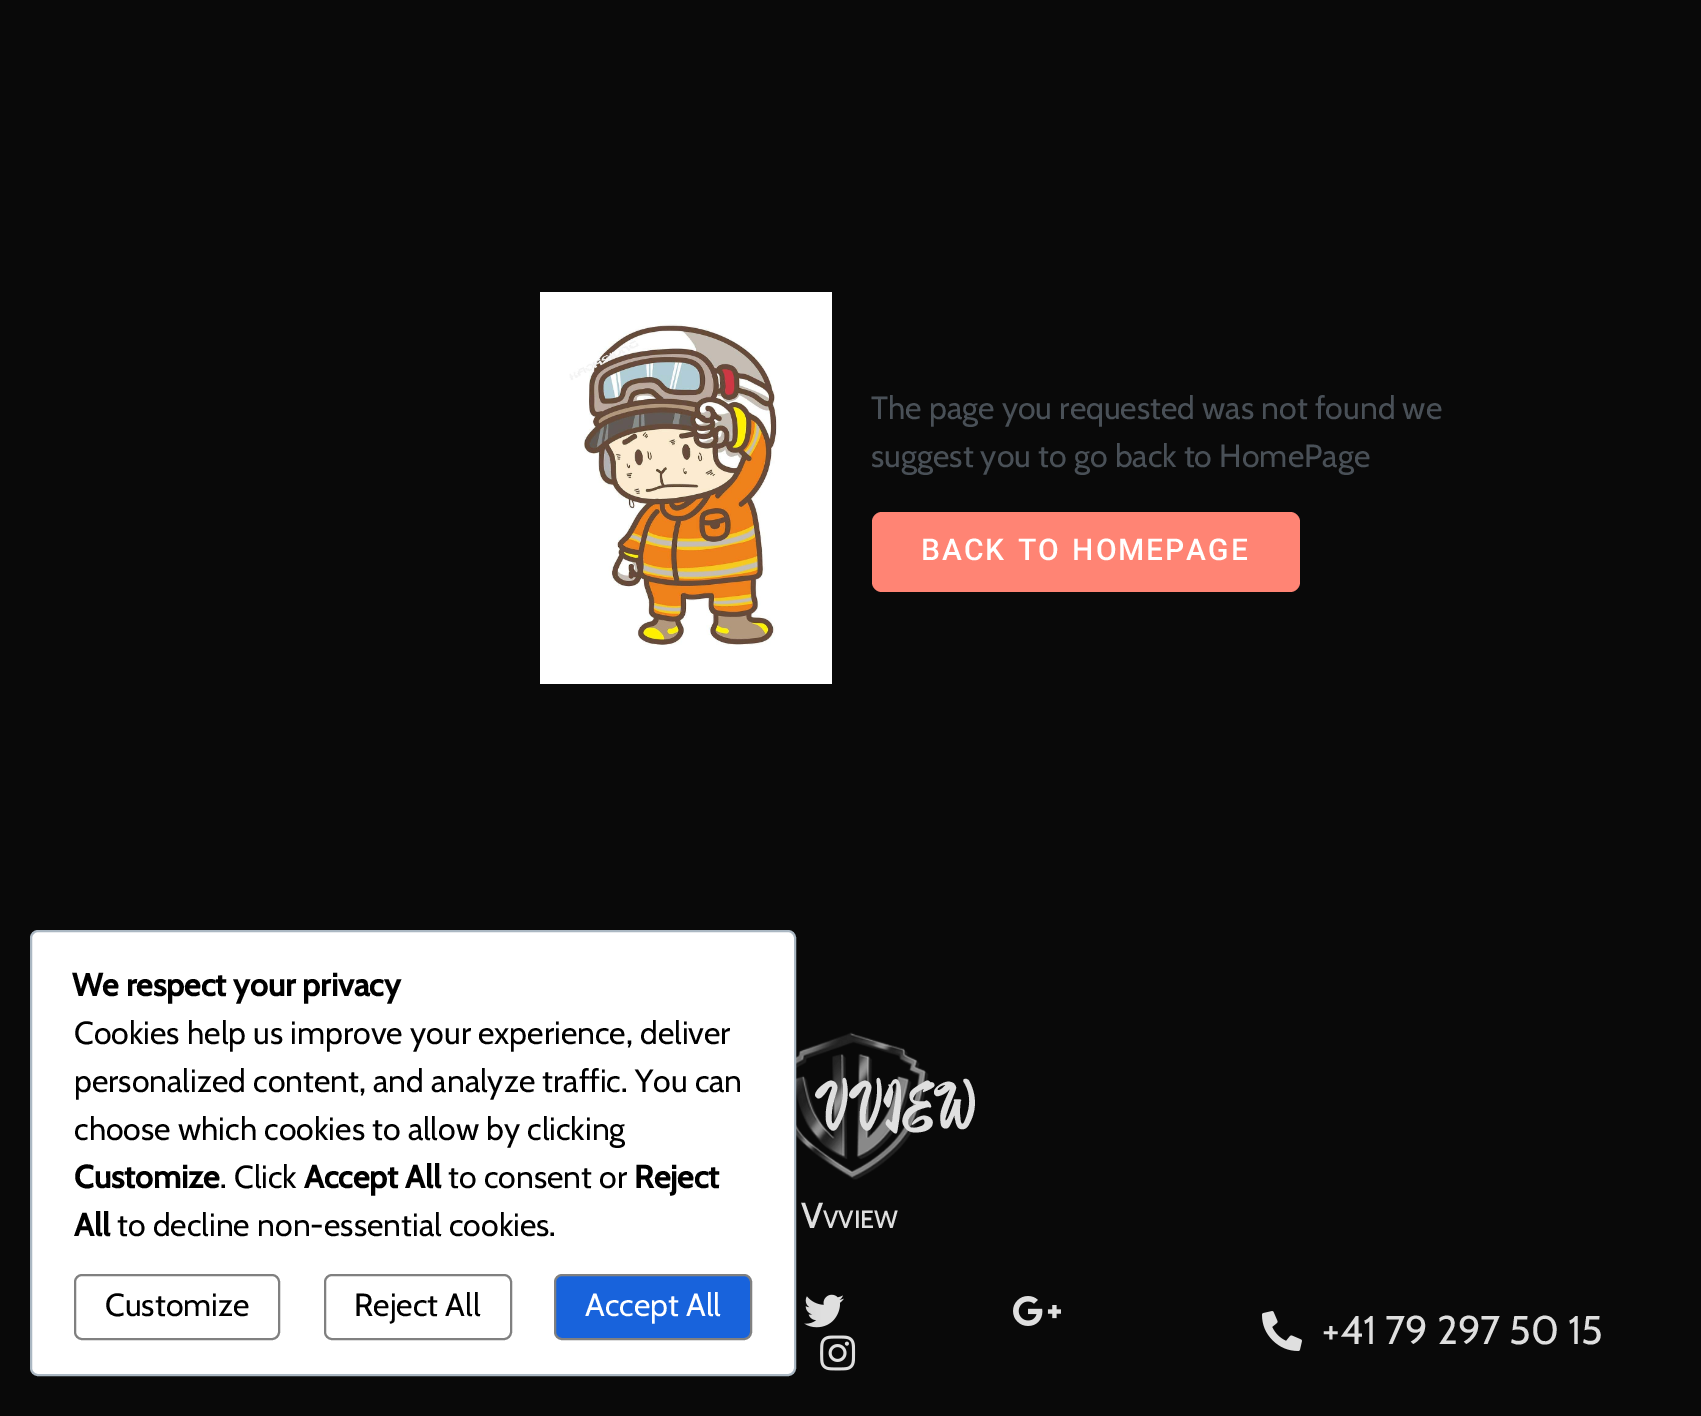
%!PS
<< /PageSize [1701 1416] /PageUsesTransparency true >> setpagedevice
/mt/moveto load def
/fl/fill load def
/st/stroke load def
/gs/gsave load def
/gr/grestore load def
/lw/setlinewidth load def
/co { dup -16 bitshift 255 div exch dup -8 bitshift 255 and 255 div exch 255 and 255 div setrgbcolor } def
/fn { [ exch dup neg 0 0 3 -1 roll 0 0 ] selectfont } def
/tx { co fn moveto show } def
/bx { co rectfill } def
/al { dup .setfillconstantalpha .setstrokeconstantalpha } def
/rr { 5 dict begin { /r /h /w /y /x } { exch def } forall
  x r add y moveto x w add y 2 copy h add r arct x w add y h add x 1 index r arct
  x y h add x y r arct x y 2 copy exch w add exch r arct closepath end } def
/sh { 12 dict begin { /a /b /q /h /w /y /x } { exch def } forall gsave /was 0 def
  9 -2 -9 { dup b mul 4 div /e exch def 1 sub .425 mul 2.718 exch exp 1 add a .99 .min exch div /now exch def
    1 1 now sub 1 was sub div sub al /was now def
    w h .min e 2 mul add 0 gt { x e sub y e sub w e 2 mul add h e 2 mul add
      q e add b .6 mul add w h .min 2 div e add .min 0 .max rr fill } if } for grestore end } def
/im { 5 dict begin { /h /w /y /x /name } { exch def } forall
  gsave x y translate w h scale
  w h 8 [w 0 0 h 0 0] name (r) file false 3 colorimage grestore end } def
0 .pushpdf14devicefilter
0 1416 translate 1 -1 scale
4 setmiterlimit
0 0 1701 1416 16#090909 bx
(media/1.raw) 540 292 292 392 im
16#FF8474 co
872 512 428 80 10 rr fl
(media/2.raw) 796 1032 133 148 im
(media/3.raw) 804 1294 40 34 im
(media/5.raw) 820 1335 36 36 im
16#000000 co
32 936 766 446 8 10 .2 sh
16#FFFFFF co
31 931 764 444 7 rr gs fl gr
16#ABB8C3 co
2 lw
st
16#808080 co
75 1275 204 64 7 rr st
325 1275 186 64 7 rr st
16#1863DC co
555 1275 196 64 7 rr gs fl gr
16#808080 co
st
(media/4.raw) 1013 1296 48 30 im
(media/6.raw) 1262 1311 40 40 im
(The page you requested was not found we) 871 419 /Cabin-Regular 32 16#495057 tx
(suggest you to go back to HomePage) 871 467 /Cabin-Regular 32 16#495057 tx
/Roboto-Medium 30 fn
16#FFFFFF co
921 560 mt 2 0 32 2 0 (BACK TO HOMEPAGE) awidthshow
(We respect your privacy) 72 996 /Cabin-Bold 32 16#000000 tx
(Cookies help us improve your experience, deliver) 74 1044 /Cabin-Regular 32 16#000000 tx
(personalized content, and analyze traffic. You can) 74 1092 /Cabin-Regular 32 16#000000 tx
(choose which cookies to allow by clicking) 74 1140 /Cabin-Regular 32 16#000000 tx
(Customize) 74 1188 /Cabin-Bold 32 16#000000 tx
(. Click) 220 1188 /Cabin-Regular 32 16#000000 tx
(Accept All) 304 1188 /Cabin-Bold 32 16#000000 tx
(to consent or) 448 1188 /Cabin-Regular 32 16#000000 tx
(Reject) 634 1188 /Cabin-Bold 32 16#000000 tx
(All) 74 1236 /Cabin-Bold 32 16#000000 tx
(to decline non-essential cookies.) 117 1236 /Cabin-Regular 32 16#000000 tx
(Customize) 105 1316 /Cabin-Regular 32 16#000000 tx
(Reject All) 354 1316 /Cabin-Regular 32 16#000000 tx
(Accept All) 585 1316 /Cabin-Regular 32 16#FFFFFF tx
(VVIEW) 815 1130 /Devonshire-Regular 70 16#DFDFDF tx
(V) 801 1228 /Cabin-Medium 36 16#DFDFDF tx
(VVIEW) 823 1228 /Cabin-Medium 25 16#DFDFDF tx
(+41 79 297 50 15) 1322 1344 /Cabin-Regular 40 16#DFDFDF tx
.poppdf14devicefilter showpage
